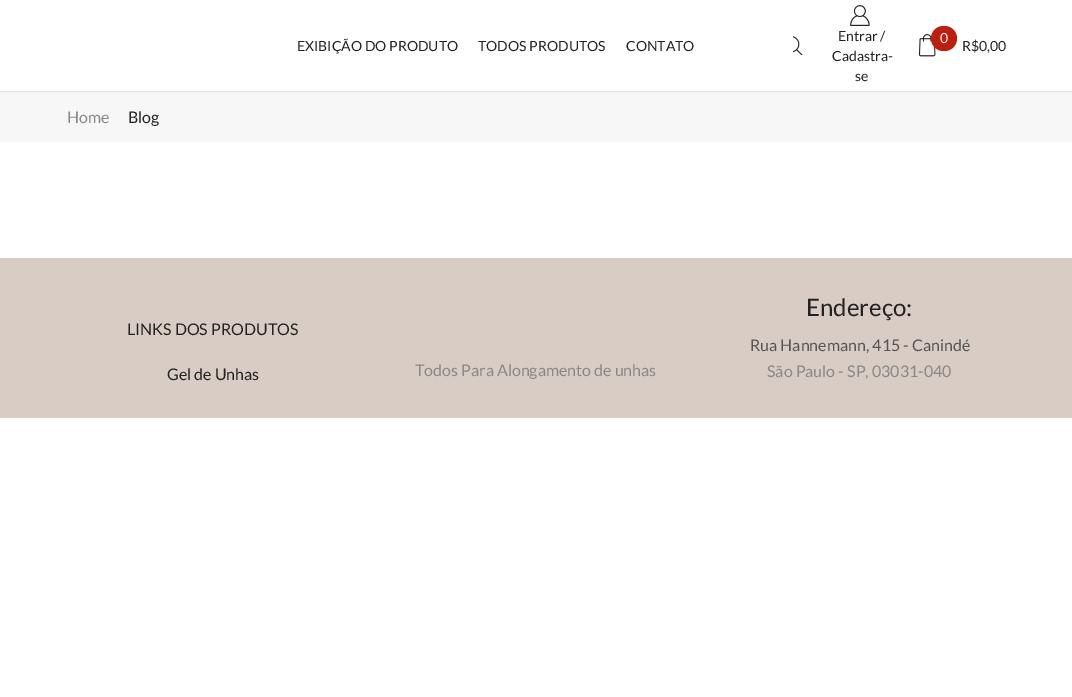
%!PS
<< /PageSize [1072 697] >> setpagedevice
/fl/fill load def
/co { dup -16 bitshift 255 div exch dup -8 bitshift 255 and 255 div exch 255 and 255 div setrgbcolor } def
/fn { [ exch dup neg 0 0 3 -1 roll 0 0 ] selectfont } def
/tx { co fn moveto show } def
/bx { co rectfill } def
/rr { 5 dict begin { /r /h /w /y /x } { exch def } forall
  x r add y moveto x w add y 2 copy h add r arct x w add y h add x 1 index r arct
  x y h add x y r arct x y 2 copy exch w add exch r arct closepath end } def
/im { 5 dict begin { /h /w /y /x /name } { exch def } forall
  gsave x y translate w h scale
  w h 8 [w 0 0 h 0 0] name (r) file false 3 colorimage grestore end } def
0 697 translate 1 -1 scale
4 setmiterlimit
0 0 1072 697 16#FFFFFF bx
0 91 1072 1 16#E1E1E1 bx
(media/1.raw) 793 36 10 19 im
(media/2.raw) 850 5 20 21 im
(media/3.raw) 918 34 18 23 im
16#BF1E0F co
931 26 26 25 12.5 rr fl
0 92 1072 50 16#F7F7F7 bx
0 258 1072 160 16#D9CCC5 bx
(EXIBIÇÃO DO PRODUTO) 297 51 /Lato-Regular 14 16#222222 tx
(TODOS PRODUTOS) 478 51 /Lato-Regular 14 16#222222 tx
(CONTATO) 626 51 /Lato-Regular 14 16#222222 tx
(Entrar /) 838 41 /Lato-Regular 14 16#222222 tx
(Cadastra-) 832 61 /Lato-Regular 14 16#222222 tx
(se) 855 81 /Lato-Regular 14 16#222222 tx
(0) 940 43 /Lato-Regular 14 16#FFFFFF tx
(R$0,00) 962 51 /Lato-Regular 14 16#222222 tx
(Home) 67 123 /Lato-Regular 16 16#888888 tx
(Blog) 128 123 /Lato-Regular 16 16#222222 tx
(LINKS DOS PRODUTOS) 127 335 /Lato-Regular 16 16#222222 tx
(Gel de Unhas) 167 380 /Lato-Regular 16 16#222222 tx
(Todos Para Alongamento de unhas) 415 376 /Lato-Regular 16 16#888888 tx
(Endereço:) 806 316 /Lato-Regular 24 16#222222 tx
(Rua Hannemann, 415 - Canindé) 750 351 /Lato-Regular 16 16#555555 tx
(São Paulo - SP, 03031-040) 767 377 /Lato-Regular 16 16#888888 tx
showpage
